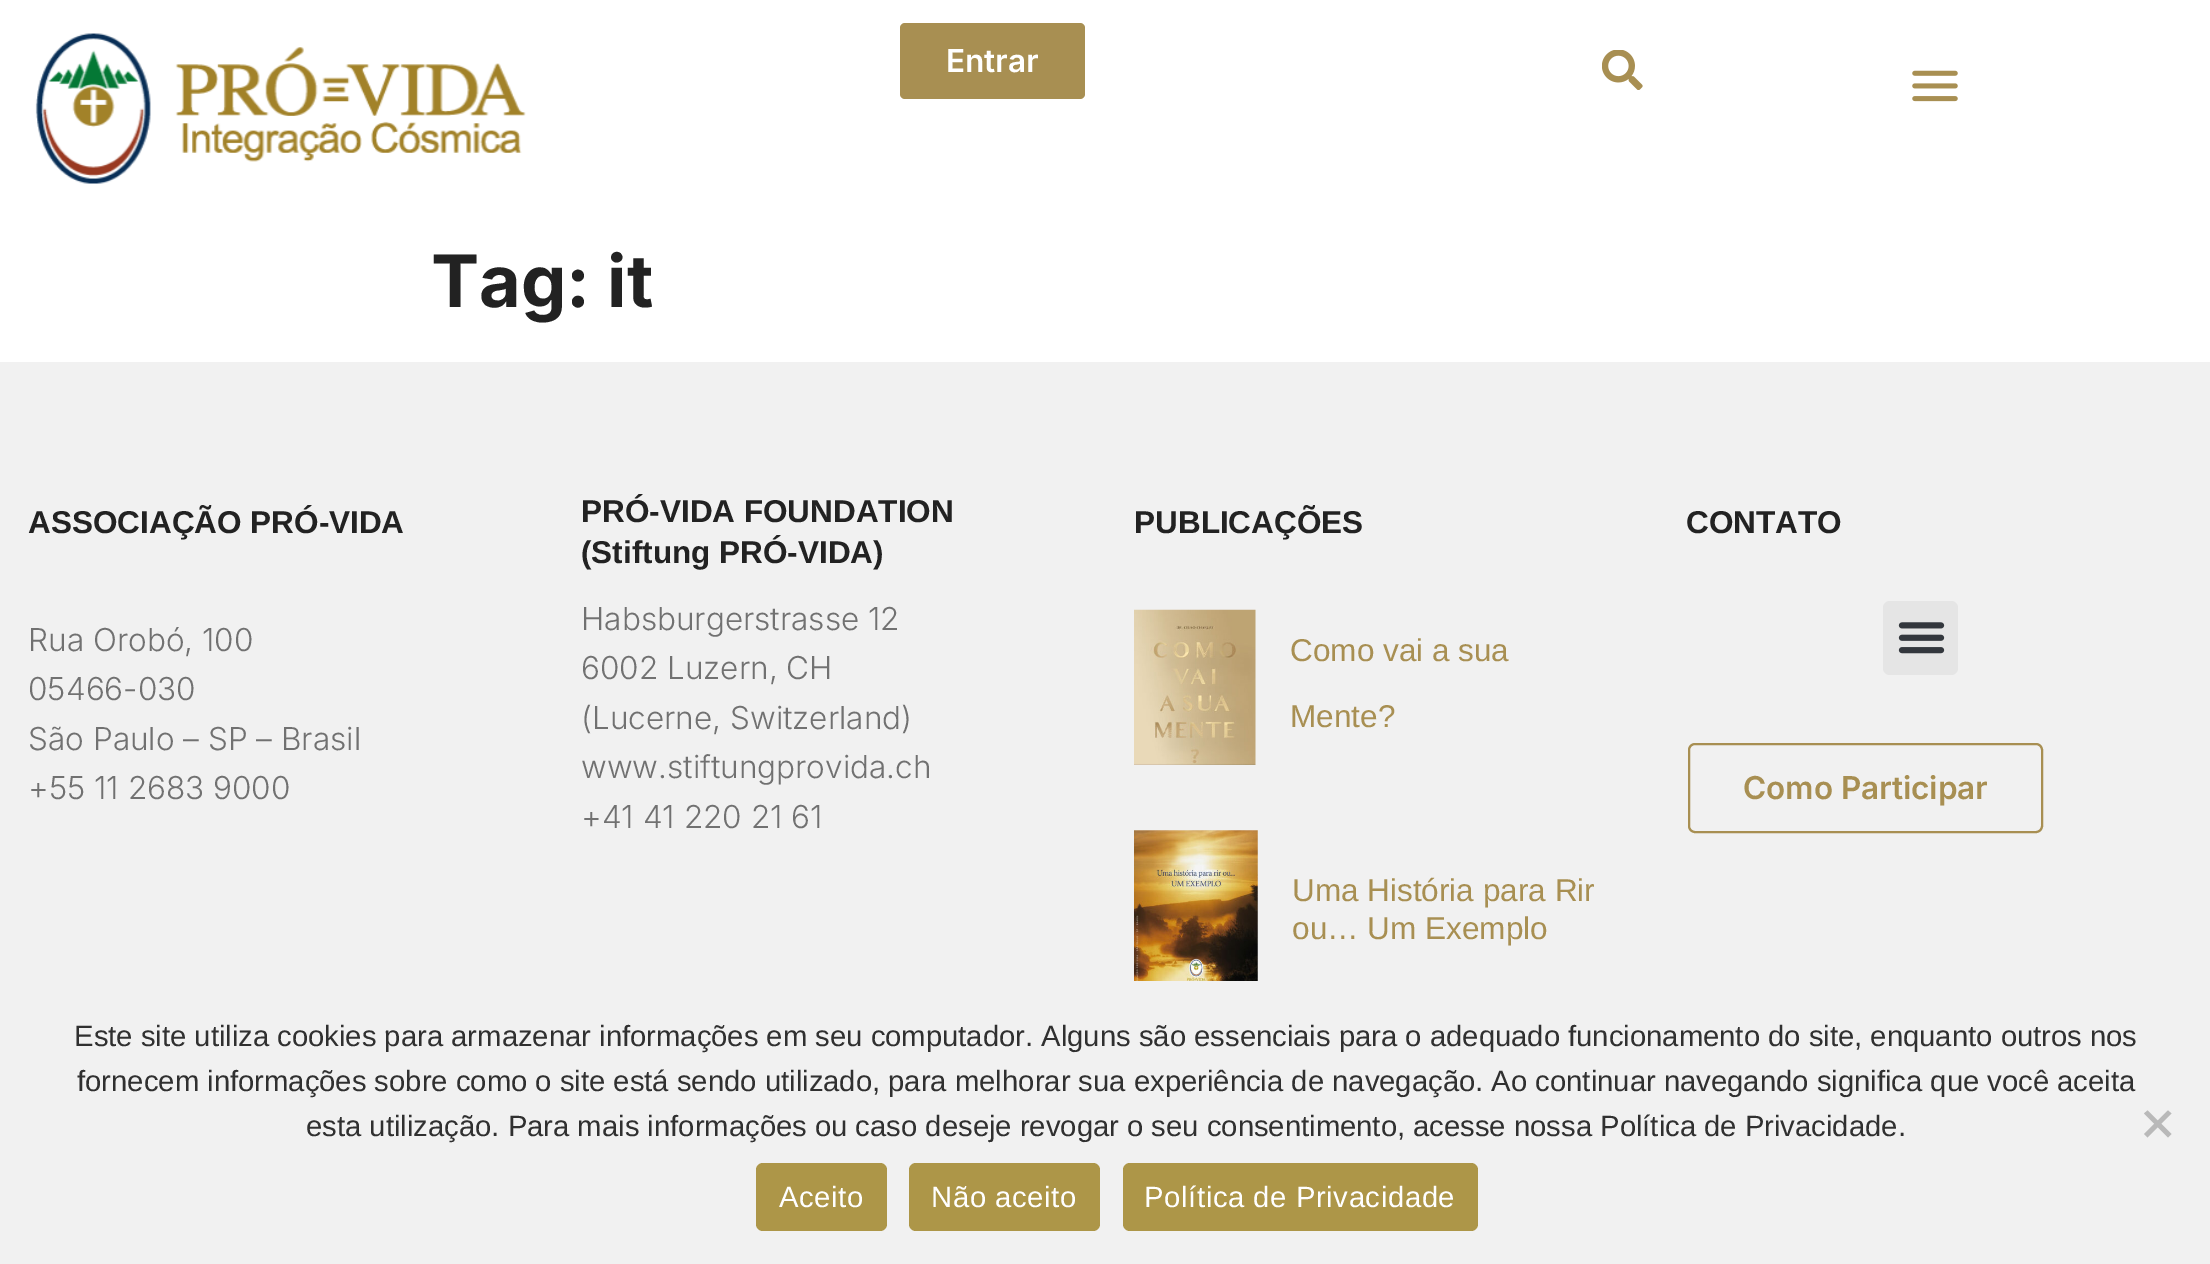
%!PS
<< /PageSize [2210 1264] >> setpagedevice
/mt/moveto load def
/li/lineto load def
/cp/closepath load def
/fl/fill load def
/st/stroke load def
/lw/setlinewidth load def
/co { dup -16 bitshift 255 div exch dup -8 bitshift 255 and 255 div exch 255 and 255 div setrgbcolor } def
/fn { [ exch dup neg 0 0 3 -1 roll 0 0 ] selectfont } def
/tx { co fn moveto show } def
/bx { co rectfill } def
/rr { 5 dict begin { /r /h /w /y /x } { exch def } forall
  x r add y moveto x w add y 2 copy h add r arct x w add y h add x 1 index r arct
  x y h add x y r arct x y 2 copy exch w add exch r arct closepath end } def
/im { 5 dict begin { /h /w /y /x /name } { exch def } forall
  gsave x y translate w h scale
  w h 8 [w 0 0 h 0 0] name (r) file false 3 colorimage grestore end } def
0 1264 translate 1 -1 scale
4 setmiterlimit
0 0 2210 1264 16#FFFFFF bx
(media/1.raw) 35 33 491 151 im
16#A88F52 co
900 23 185 76 5 rr fl
(media/2.raw) 1602 50 41 40 im
(media/3.raw) 1912 70 46 32 im
0 362 2210 902 16#F1F1F1 bx
(media/4.raw) 1134 609 122 156 im
(media/5.raw) 1134 830 124 151 im
16#E5E5E5 co
1883 601 75 74 7 rr fl
(media/6.raw) 1898 622 47 32 im
16#A88F52 co
2 lw
1689 744 353 88 6 rr st
16#B9B9B9 co
2168 1110.5 mt 2171.5 1113.5 li 2147.5 1137.5 li 2144 1134 li cp fl
2144 1113.5 mt 2147.5 1110.5 li 2171.5 1134 li 2168 1137.5 li cp fl
16#AD9648 co
756 1163 131 68 7 rr fl
909 1163 191 68 7 rr fl
1123 1163 355 68 7 rr fl
(Entrar) 946 72 /Inter-SemiBold 31.5 16#FFFFFF tx
(Tag: it) 431 307 /Inter-Bold 72 16#222222 tx
(ASSOCIAÇÃO PRÓ-VIDA) 28 533 /LiberationSans-Bold 31.5 16#222222 tx
(Rua Orobó, 100) 28 651 /Inter-Light 31.5 16#717171 tx
(05466-030) 28 700 /Inter-Light 31.5 16#717171 tx
(São Paulo – SP – Brasil) 28 750 /Inter-Light 31.5 16#717171 tx
(+55 11 2683 9000) 28 799 /Inter-Light 31.5 16#717171 tx
(PRÓ-VIDA FOUNDATION) 581 522 /LiberationSans-Bold 31.5 16#222222 tx
(\(Stiftung PRÓ-VIDA\)) 581 563 /LiberationSans-Bold 31.5 16#222222 tx
(Habsburgerstrasse 12) 581 630 /Inter-Light 31.5 16#717171 tx
(6002 Luzern, CH) 581 679 /Inter-Light 31.5 16#717171 tx
(\(Lucerne, Switzerland\)) 581 729 /Inter-Light 31.5 16#717171 tx
(www.stiftungprovida.ch) 581 778 /Inter-Light 31.5 16#717171 tx
(+41 41 220 21 61) 581 828 /Inter-Light 31.5 16#717171 tx
(PUBLICAÇÕES) 1134 533 /LiberationSans-Bold 31.5 16#222222 tx
(Como vai a sua) 1290 661 /LiberationSans-Regular 31.5 16#A88F52 tx
(Mente?) 1290 727 /LiberationSans-Regular 31.5 16#A88F52 tx
(Uma História para Rir) 1292 901 /LiberationSans-Regular 31.5 16#A88F52 tx
(ou… Um Exemplo) 1292 939 /LiberationSans-Regular 31.5 16#A88F52 tx
(CONTATO) 1686 533 /LiberationSans-Bold 31.5 16#222222 tx
(Como Participar) 1743 799 /Inter-SemiBold 31.5 16#A88F52 tx
(Este site utiliza cookies para armazenar informações em seu computador. Alguns são essenciais para o adequado funcionamento do site, enquanto outros nos) 74 1046 /LiberationSans-Regular 29.25 16#303030 tx
(fornecem informações sobre como o site está sendo utilizado, para melhorar sua experiência de navegação. Ao continuar navegando significa que você aceita) 77 1091 /LiberationSans-Regular 29.25 16#303030 tx
(esta utilização. Para mais informações ou caso deseje revogar o seu consentimento, acesse nossa Política de Privacidade.) 306 1136 /LiberationSans-Regular 29.25 16#303030 tx
16#FFFFFF co
779 1207 mt .6 0 (Aceito) ashow
931 1207 mt .6 0 (Não aceito) ashow
1144 1207 mt .6 0 (Política de Privacidade) ashow
showpage
